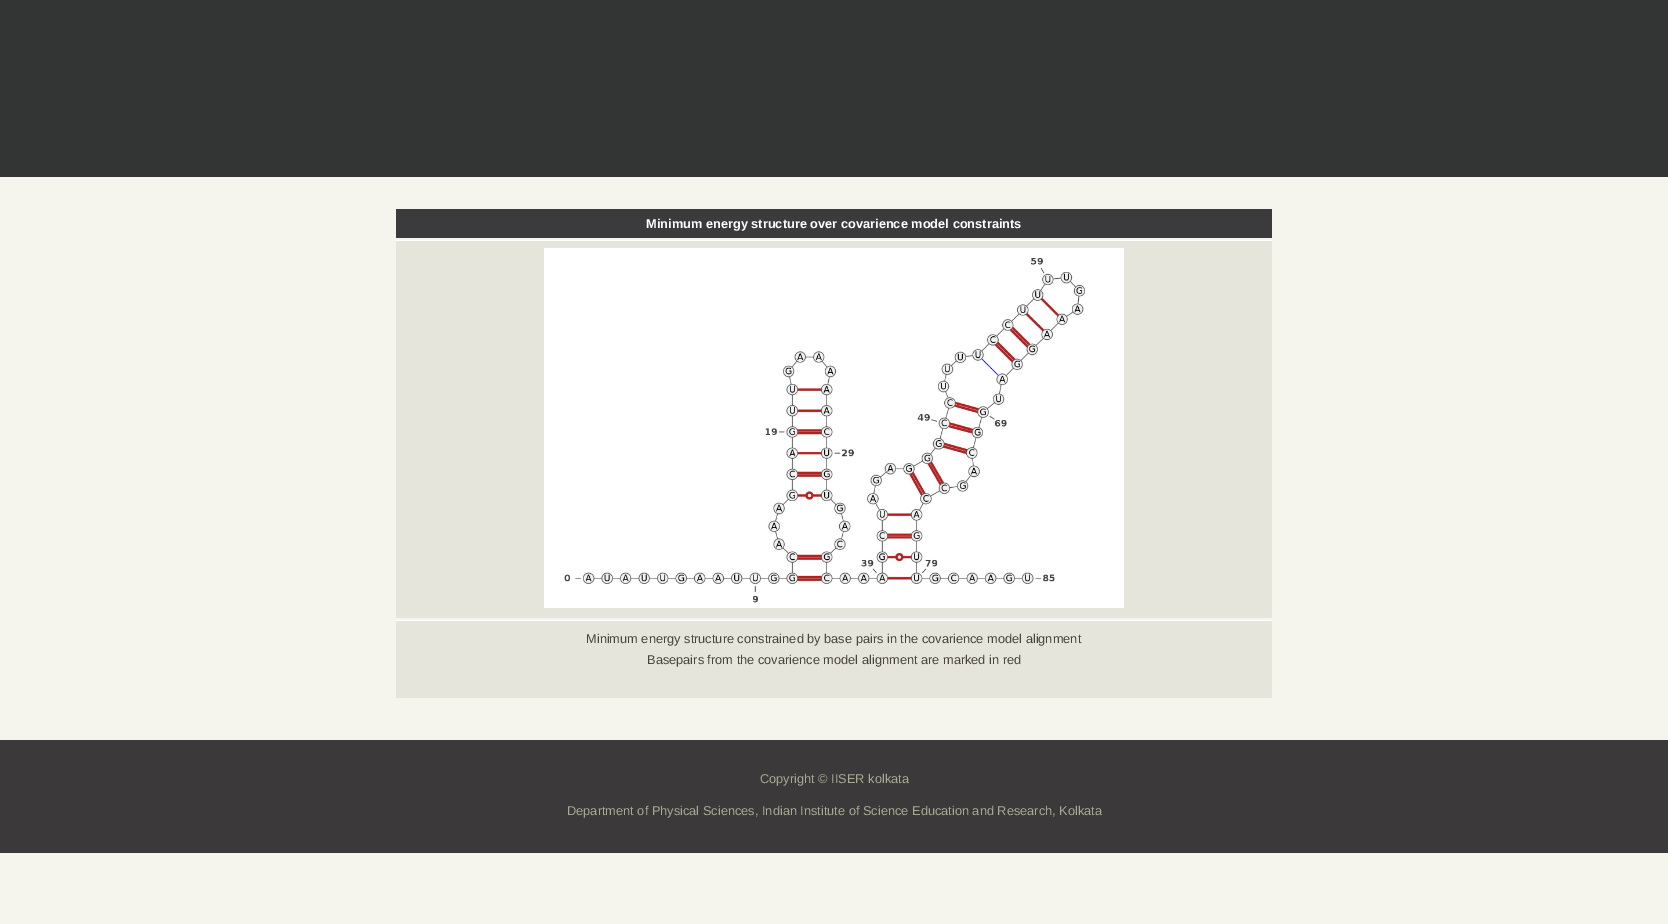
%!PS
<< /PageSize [1668 924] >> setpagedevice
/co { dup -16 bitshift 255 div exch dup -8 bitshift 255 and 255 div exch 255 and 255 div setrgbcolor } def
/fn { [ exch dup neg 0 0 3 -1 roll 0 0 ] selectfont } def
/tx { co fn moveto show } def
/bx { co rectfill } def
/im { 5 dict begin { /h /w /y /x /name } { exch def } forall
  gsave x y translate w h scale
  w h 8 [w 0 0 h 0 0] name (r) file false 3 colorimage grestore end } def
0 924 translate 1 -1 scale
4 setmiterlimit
0 0 1668 924 16#F5F5EE bx
0 0 1668 177 16#323534 bx
396 209 876 29 16#3B3B3B bx
396 241 876 377 16#E5E5DB bx
396 240 876 1 16#FFFFFF bx
(media/1.raw) 544 248 580 360 im
396 621 876 77 16#E5E5DB bx
396 620 876 1 16#FFFFFF bx
0 740 1668 113 16#3B3939 bx
(Minimum energy structure over covarience model constraints) 646 228 /LiberationSans-Bold 12.8 16#FFFFFF tx
(Minimum energy structure constrained by base pairs in the covarience model alignment) 586 643 /LiberationSans-Regular 12.8 16#47433F tx
(Basepairs from the covarience model alignment are marked in red) 647 664 /LiberationSans-Regular 12.8 16#47433F tx
(Copyright © IISER kolkata) 760 783 /LiberationSans-Regular 12.8 16#A8AA94 tx
(Department of Physical Sciences, Indian Institute of Science Education and Research, Kolkata) 567 815 /LiberationSans-Regular 12.8 16#A8AA94 tx
showpage
